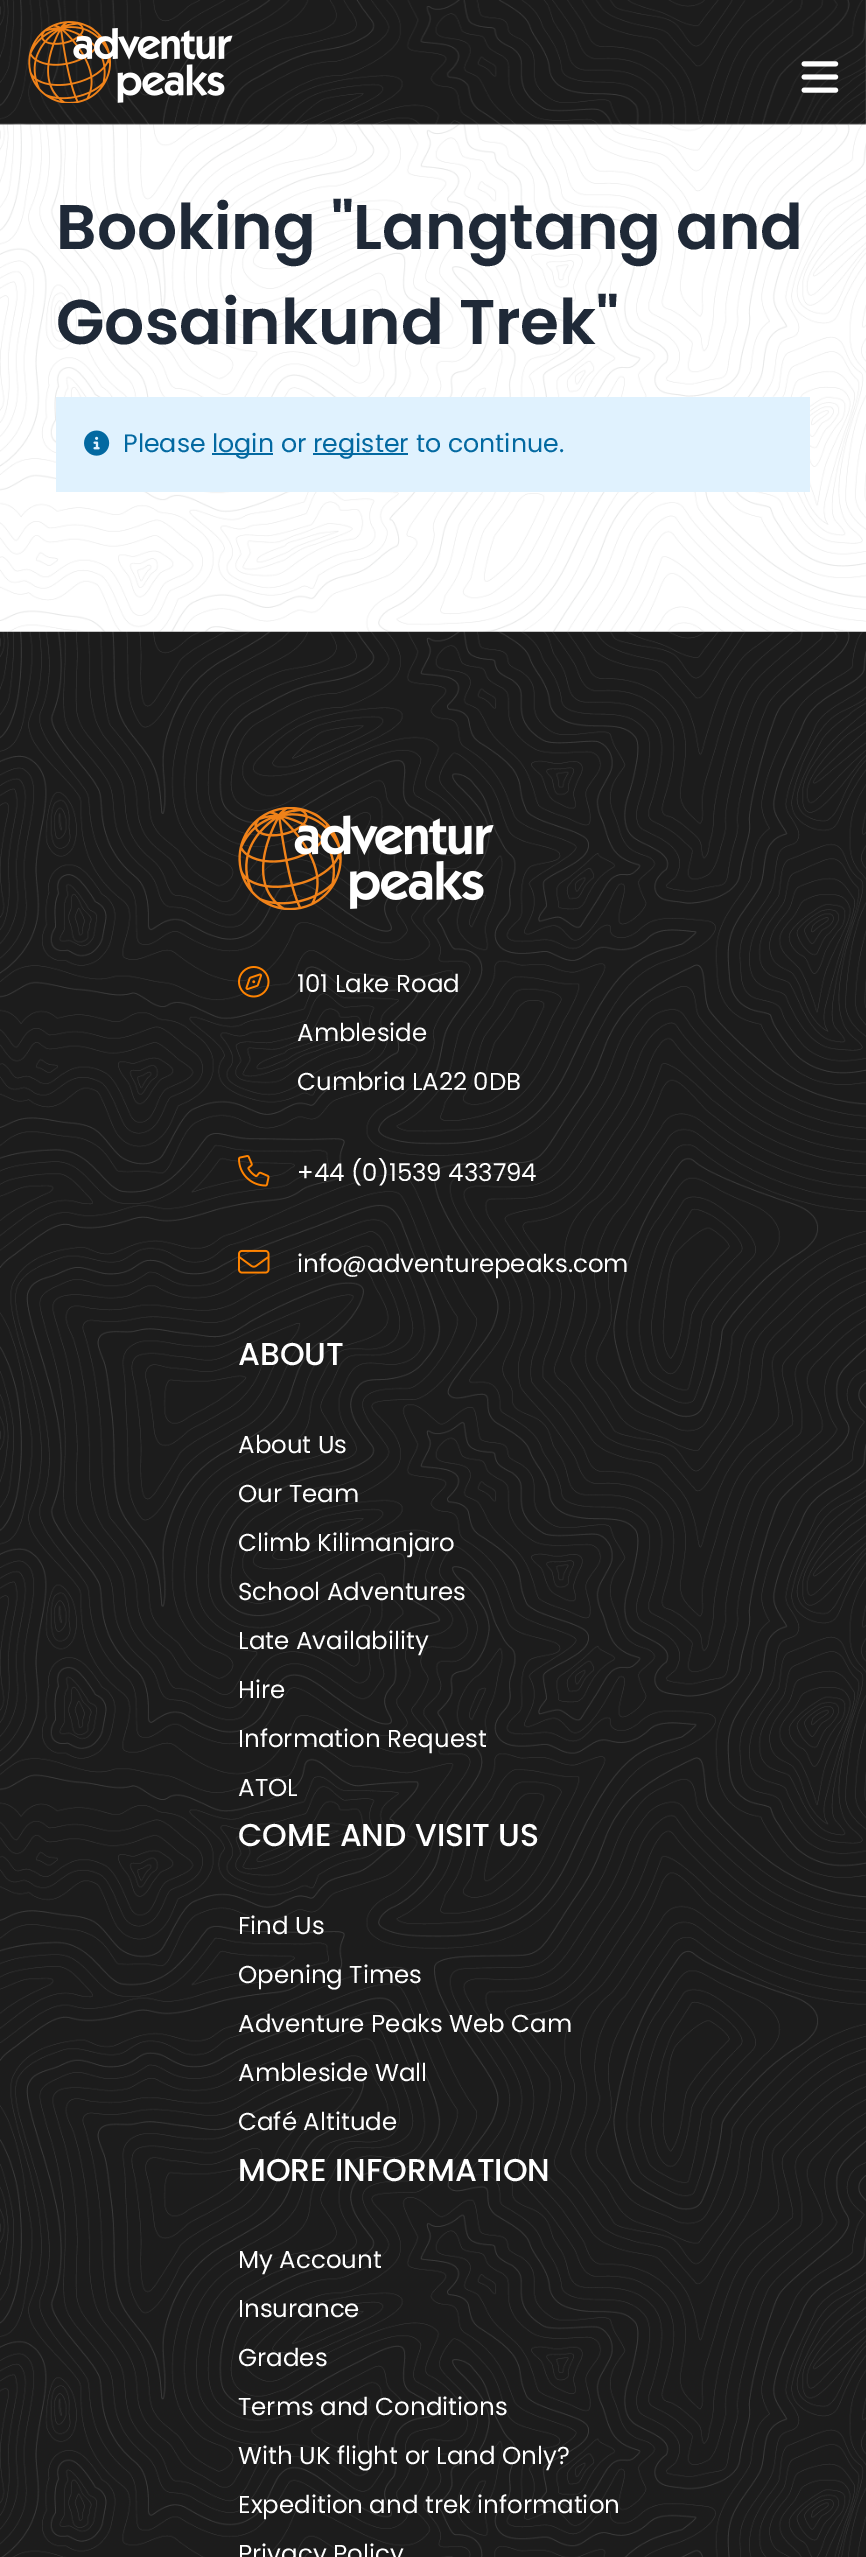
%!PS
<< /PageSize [866 2557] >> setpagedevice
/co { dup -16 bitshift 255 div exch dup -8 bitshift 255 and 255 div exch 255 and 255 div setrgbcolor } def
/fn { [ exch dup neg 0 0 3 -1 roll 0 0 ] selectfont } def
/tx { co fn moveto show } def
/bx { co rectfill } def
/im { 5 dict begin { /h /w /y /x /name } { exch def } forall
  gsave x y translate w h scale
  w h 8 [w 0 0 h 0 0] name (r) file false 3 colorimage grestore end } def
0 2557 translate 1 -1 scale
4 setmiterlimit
0 0 866 2557 16#FFFFFF bx
(media/4.raw) 0 124 866 508 im
(media/1.raw) 0 0 866 125 im
(media/2.raw) 28 21 205 82 im
(media/3.raw) 801 61 38 32 im
56 397 754 95 16#E0F2FE bx
(media/5.raw) 84 430 26 26 im
212 453 61 2 16#0369A1 bx
313 453 95 2 16#0369A1 bx
(media/6.raw) 0 631 866 1926 im
(media/7.raw) 238 807 256 103 im
(media/8.raw) 238 966 32 32 im
(media/9.raw) 238 1155 32 32 im
(media/10.raw) 238 1249 32 25 im
(Booking "Langtang and) 56 249 /Poppins-SemiBold 63 16#1F2937 tx
(Gosainkund Trek") 56 344 /Poppins-SemiBold 63 16#1F2937 tx
(Please) 123 452 /Poppins-Regular 25.25 16#0369A1 tx
(login or) 212 452 /Poppins-Regular 25.25 16#0369A1 tx
(register to continue.) 313 452 /Poppins-Regular 25.25 16#0369A1 tx
(101 Lake Road) 297 992 /Poppins-Regular 24.5 16#FFFFFF tx
(Ambleside) 297 1041 /Poppins-Regular 24.5 16#FFFFFF tx
(Cumbria LA22 0DB) 297 1090 /Poppins-Regular 24.5 16#FFFFFF tx
(+44 \(0\)1539 433794) 297 1181 /Poppins-Regular 24.5 16#FFFFFF tx
(info@adventurepeaks.com) 297 1272 /Poppins-Regular 24.5 16#FFFFFF tx
(ABOUT) 238 1365 /Poppins-Medium 31.5 16#FFFFFF tx
(About Us) 238 1453 /Poppins-Regular 24.5 16#FFFFFF tx
(Our Team) 238 1502 /Poppins-Regular 24.5 16#FFFFFF tx
(Climb Kilimanjaro) 238 1551 /Poppins-Regular 24.5 16#FFFFFF tx
(School Adventures) 238 1600 /Poppins-Regular 24.5 16#FFFFFF tx
(Late Availability) 238 1649 /Poppins-Regular 24.5 16#FFFFFF tx
(Hire) 238 1698 /Poppins-Regular 24.5 16#FFFFFF tx
(Information Request) 238 1747 /Poppins-Regular 24.5 16#FFFFFF tx
(ATOL) 238 1796 /Poppins-Regular 24.5 16#FFFFFF tx
(COME AND VISIT US) 238 1846 /Poppins-Medium 31.5 16#FFFFFF tx
(Find Us) 238 1934 /Poppins-Regular 24.5 16#FFFFFF tx
(Opening Times) 238 1983 /Poppins-Regular 24.5 16#FFFFFF tx
(Adventure Peaks Web Cam) 238 2032 /Poppins-Regular 24.5 16#FFFFFF tx
(Ambleside Wall) 238 2081 /Poppins-Regular 24.5 16#FFFFFF tx
(Café Altitude) 238 2130 /Poppins-Regular 24.5 16#FFFFFF tx
(MORE INFORMATION) 238 2181 /Poppins-Medium 31.5 16#FFFFFF tx
(My Account) 238 2268 /Poppins-Regular 24.5 16#FFFFFF tx
(Insurance) 238 2317 /Poppins-Regular 24.5 16#FFFFFF tx
(Grades) 238 2366 /Poppins-Regular 24.5 16#FFFFFF tx
(Terms and Conditions) 238 2415 /Poppins-Regular 24.5 16#FFFFFF tx
(With UK flight or Land Only?) 238 2464 /Poppins-Regular 24.5 16#FFFFFF tx
(Expedition and trek information) 238 2513 /Poppins-Regular 24.5 16#FFFFFF tx
(Privacy Policy) 238 2562 /Poppins-Regular 24.5 16#FFFFFF tx
showpage
